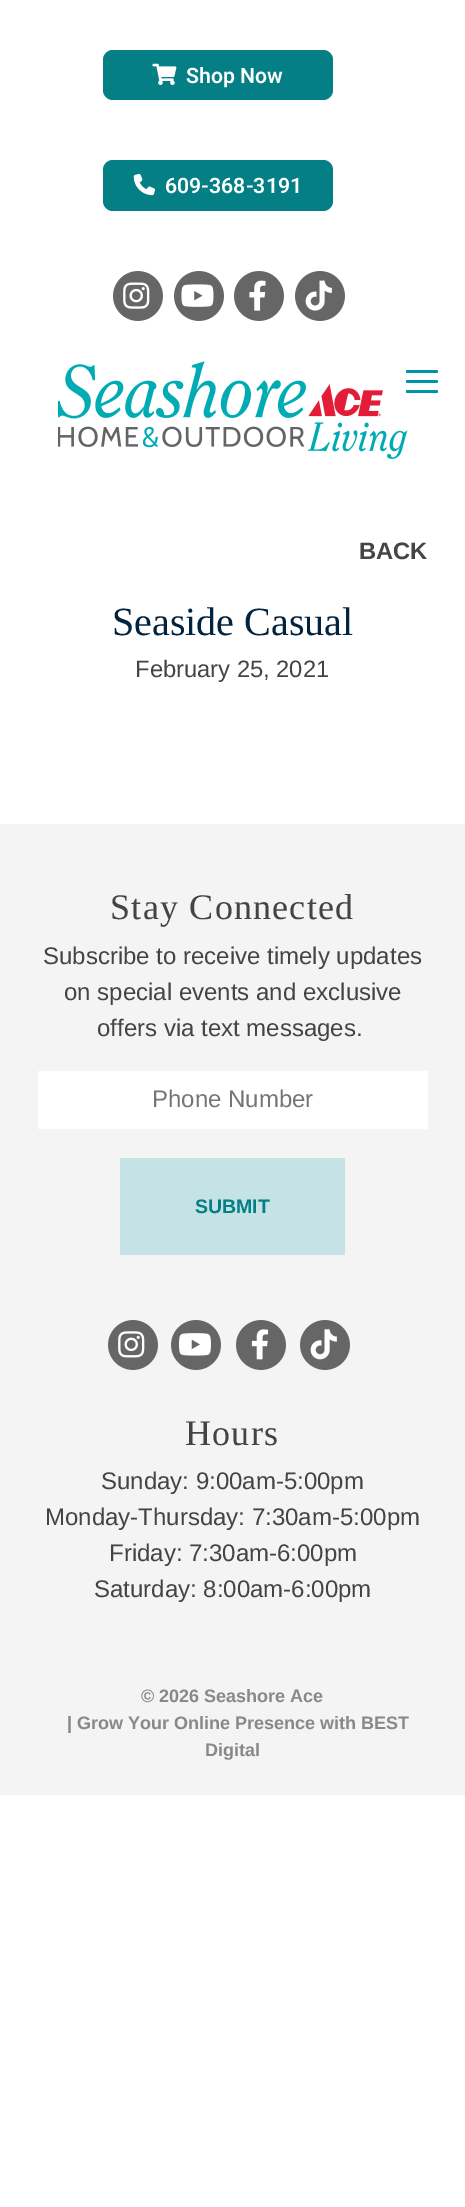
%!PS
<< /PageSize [465 2207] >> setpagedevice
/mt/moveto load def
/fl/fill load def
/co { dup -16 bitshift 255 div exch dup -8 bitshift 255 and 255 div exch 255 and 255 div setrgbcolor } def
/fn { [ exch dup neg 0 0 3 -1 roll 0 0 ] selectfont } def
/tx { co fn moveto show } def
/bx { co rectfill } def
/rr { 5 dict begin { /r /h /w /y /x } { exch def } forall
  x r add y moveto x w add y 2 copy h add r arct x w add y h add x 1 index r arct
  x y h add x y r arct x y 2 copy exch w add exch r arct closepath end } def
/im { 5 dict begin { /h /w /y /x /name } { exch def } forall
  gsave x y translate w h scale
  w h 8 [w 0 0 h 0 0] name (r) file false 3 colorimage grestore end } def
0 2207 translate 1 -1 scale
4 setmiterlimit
0 0 465 2207 16#FFFFFF bx
16#047F86 co
103 50 230 50 10 rr fl
(media/1.raw) 152 63 25 22 im
103 160 230 51 10 rr fl
(media/2.raw) 133 173 22 23 im
(media/3.raw) 113 271 50 50 im
(media/4.raw) 174 271 50 50 im
(media/5.raw) 234 271 50 50 im
(media/6.raw) 295 271 50 50 im
(media/7.raw) 58 361 350 98 im
16#0094AA co
406 370 32 3 1.5 rr fl
406 380 32 3 1.5 rr fl
406 390 32 3 1.5 rr fl
0 824 465 971 16#F4F4F4 bx
38 1071 390 58 16#FFFFFF bx
120 1158 225 97 16#C5E2E5 bx
(media/8.raw) 108 1320 50 50 im
(media/9.raw) 171 1320 50 50 im
(media/10.raw) 236 1320 50 50 im
(media/11.raw) 300 1320 50 50 im
(Shop Now) 186 83 /Roboto-SemiBold 21.25 16#FFFFFF tx
(609-368-3191) 165 193 /Roboto-SemiBold 21.25 16#FFFFFF tx
(BACK) 359 559 /LiberationSans-Bold 23.75 16#444444 tx
(Seaside Casual) 112 635 /LiberationSerif-Regular 40 16#002440 tx
(February 25, 2021) 135 677 /LiberationSans-Regular 23.75 16#444444 tx
/LiberationSerif-Regular 36 fn
110 919 mt 1.25 0 (Stay Connected) ashow
(Subscribe to receive timely updates) 43 964 /LiberationSans-Regular 24 16#444444 tx
(on special events and exclusive) 64 1000 /LiberationSans-Regular 24 16#444444 tx
(offers via text messages.) 97 1036 /LiberationSans-Regular 24 16#444444 tx
(Phone Number) 152 1107 /LiberationSans-Regular 24 16#757575 tx
(SUBMIT) 195 1213 /LiberationSans-Bold 19.5 16#047F86 tx
/LiberationSerif-Regular 36 fn
16#444444 co
185 1445 mt 1.25 0 (Hours) ashow
(Sunday: 9:00am-5:00pm) 101 1489 /LiberationSans-Regular 24 16#444444 tx
(Monday-Thursday: 7:30am-5:00pm) 45 1525 /LiberationSans-Regular 24 16#444444 tx
(Friday: 7:30am-6:00pm) 109 1561 /LiberationSans-Regular 24 16#444444 tx
(Saturday: 8:00am-6:00pm) 94 1597 /LiberationSans-Regular 24 16#444444 tx
(© 2026 Seashore Ace) 141 1702 /LiberationSans-Bold 18 16#898888 tx
(| Grow Your Online Presence with BEST) 67 1729 /LiberationSans-Bold 18 16#898888 tx
(Digital) 205 1756 /LiberationSans-Bold 18 16#898888 tx
showpage
